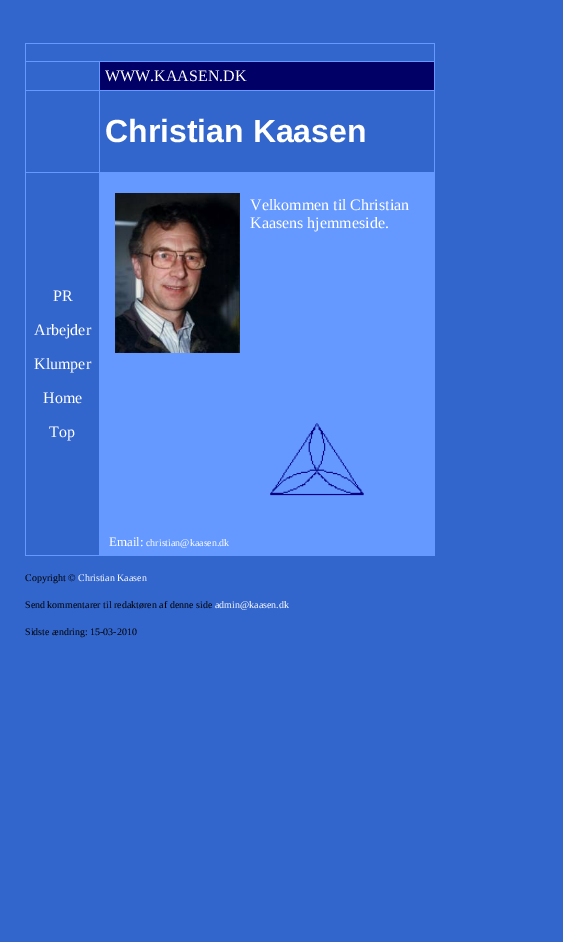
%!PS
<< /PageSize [563 942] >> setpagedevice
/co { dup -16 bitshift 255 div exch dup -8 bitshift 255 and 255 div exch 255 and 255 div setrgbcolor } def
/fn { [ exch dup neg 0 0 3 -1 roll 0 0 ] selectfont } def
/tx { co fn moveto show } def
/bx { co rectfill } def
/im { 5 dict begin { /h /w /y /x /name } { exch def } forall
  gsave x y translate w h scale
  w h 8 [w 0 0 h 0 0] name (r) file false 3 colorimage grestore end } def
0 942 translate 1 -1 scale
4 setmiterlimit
0 0 563 942 16#3366CC bx
25 43 410 1 16#6699FF bx
434 43 1 513 16#6699FF bx
25 555 410 1 16#6699FF bx
25 43 1 513 16#6699FF bx
99 61 336 1 16#6699FF bx
99 90 336 1 16#6699FF bx
25 172 410 1 16#6699FF bx
99 90 1 83 16#6699FF bx
25 90 75 1 16#6699FF bx
99 61 1 30 16#6699FF bx
25 61 75 1 16#6699FF bx
100 62 334 28 16#000066 bx
99 173 335 382 16#6699FF bx
(media/1.raw) 115 193 125 160 im
(media/2.raw) 270 423 94 73 im
(WWW.KAASEN.DK) 105 81 /LiberationSerif-Regular 16 16#FFFFFF tx
(Christian Kaasen) 105 142 /LiberationSans-Bold 32 16#FFFFFF tx
(PR) 53 301 /LiberationSerif-Regular 16 16#FFFFFF tx
(Arbejder) 34 335 /LiberationSerif-Regular 16 16#FFFFFF tx
(Klumper) 34 369 /LiberationSerif-Regular 16 16#FFFFFF tx
(Home) 43 403 /LiberationSerif-Regular 16 16#FFFFFF tx
(Top) 49 437 /LiberationSerif-Regular 16 16#FFFFFF tx
(Velkommen til Christian) 250 210 /LiberationSerif-Regular 16 16#FFFFFF tx
(Kaasens hjemmeside.) 250 228 /LiberationSerif-Regular 16 16#FFFFFF tx
(Email:) 109 546 /LiberationSerif-Regular 13 16#FFFFFF tx
(christian@kaasen.dk) 146 546 /LiberationSerif-Regular 10 16#FFFFFF tx
(Copyright ©) 25 581 /LiberationSerif-Regular 10 16#000000 tx
(Christian Kaasen) 78 581 /LiberationSerif-Regular 10 16#FFFFFF tx
(Send kommentarer til redaktøren af denne side) 25 608 /LiberationSerif-Regular 10 16#000000 tx
(admin@kaasen.dk) 215 608 /LiberationSerif-Regular 10 16#FFFFFF tx
(Sidste ændring: 15-03-2010) 25 635 /LiberationSerif-Regular 10 16#000000 tx
showpage
